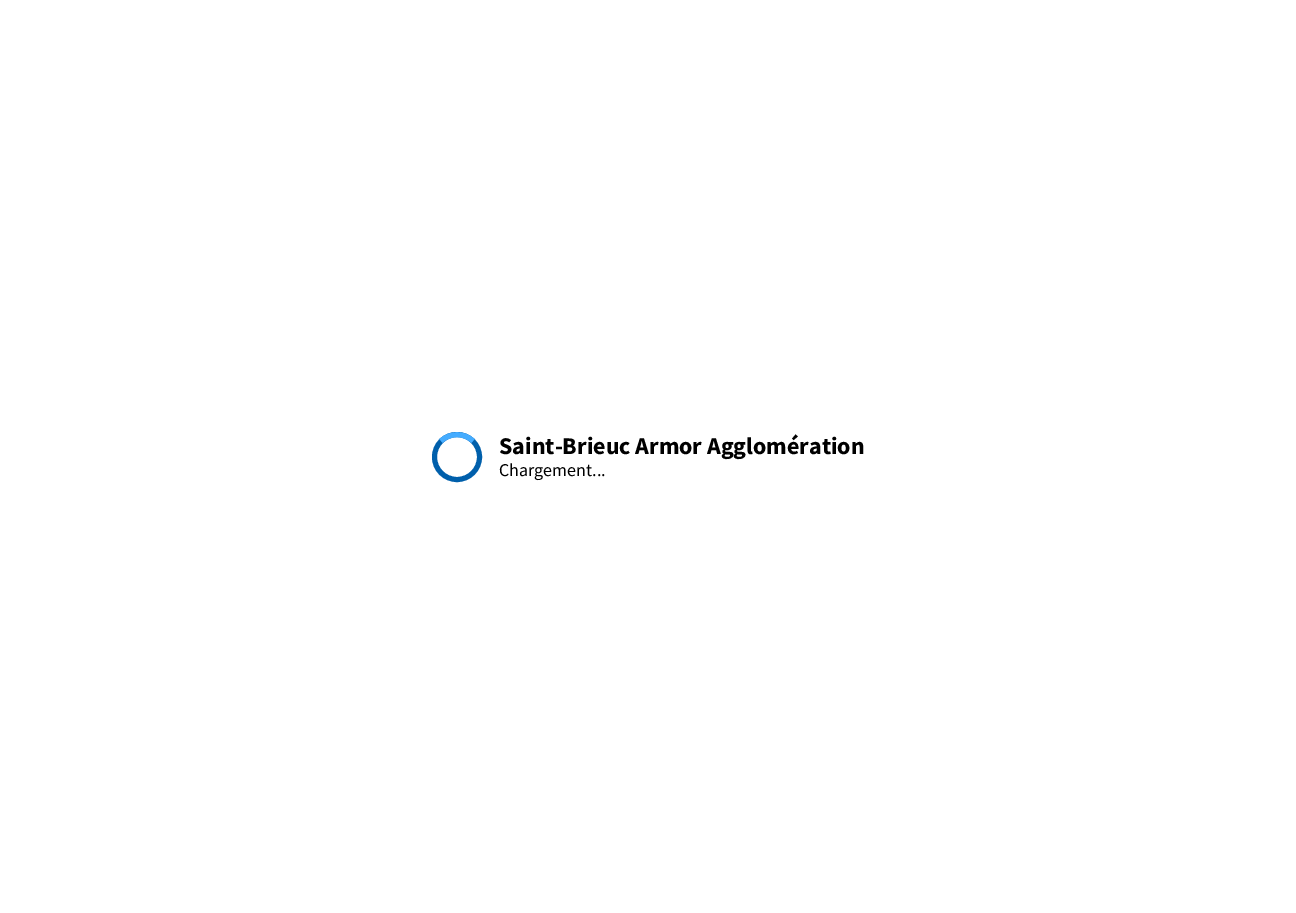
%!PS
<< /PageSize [1296 913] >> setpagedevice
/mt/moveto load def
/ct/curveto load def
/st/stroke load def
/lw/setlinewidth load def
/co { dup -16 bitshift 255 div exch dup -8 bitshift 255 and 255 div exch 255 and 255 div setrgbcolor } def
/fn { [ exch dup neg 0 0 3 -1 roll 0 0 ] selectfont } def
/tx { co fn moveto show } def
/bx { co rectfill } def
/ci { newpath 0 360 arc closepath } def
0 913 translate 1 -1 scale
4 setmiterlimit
0 0 1296 913 16#FFFFFF bx
16#005FAB co
5 lw
457 457 22.5 ci st
16#45ACFF co
441 441 mt 450 432.5 464 432.5 473 441 ct st
(Saint-Brieuc Armor Agglomération) 499 454 /SourceSansPro-Bold 24 16#000000 tx
(Chargement...) 499 476 /SourceSansPro-Regular 18 16#000000 tx
showpage
